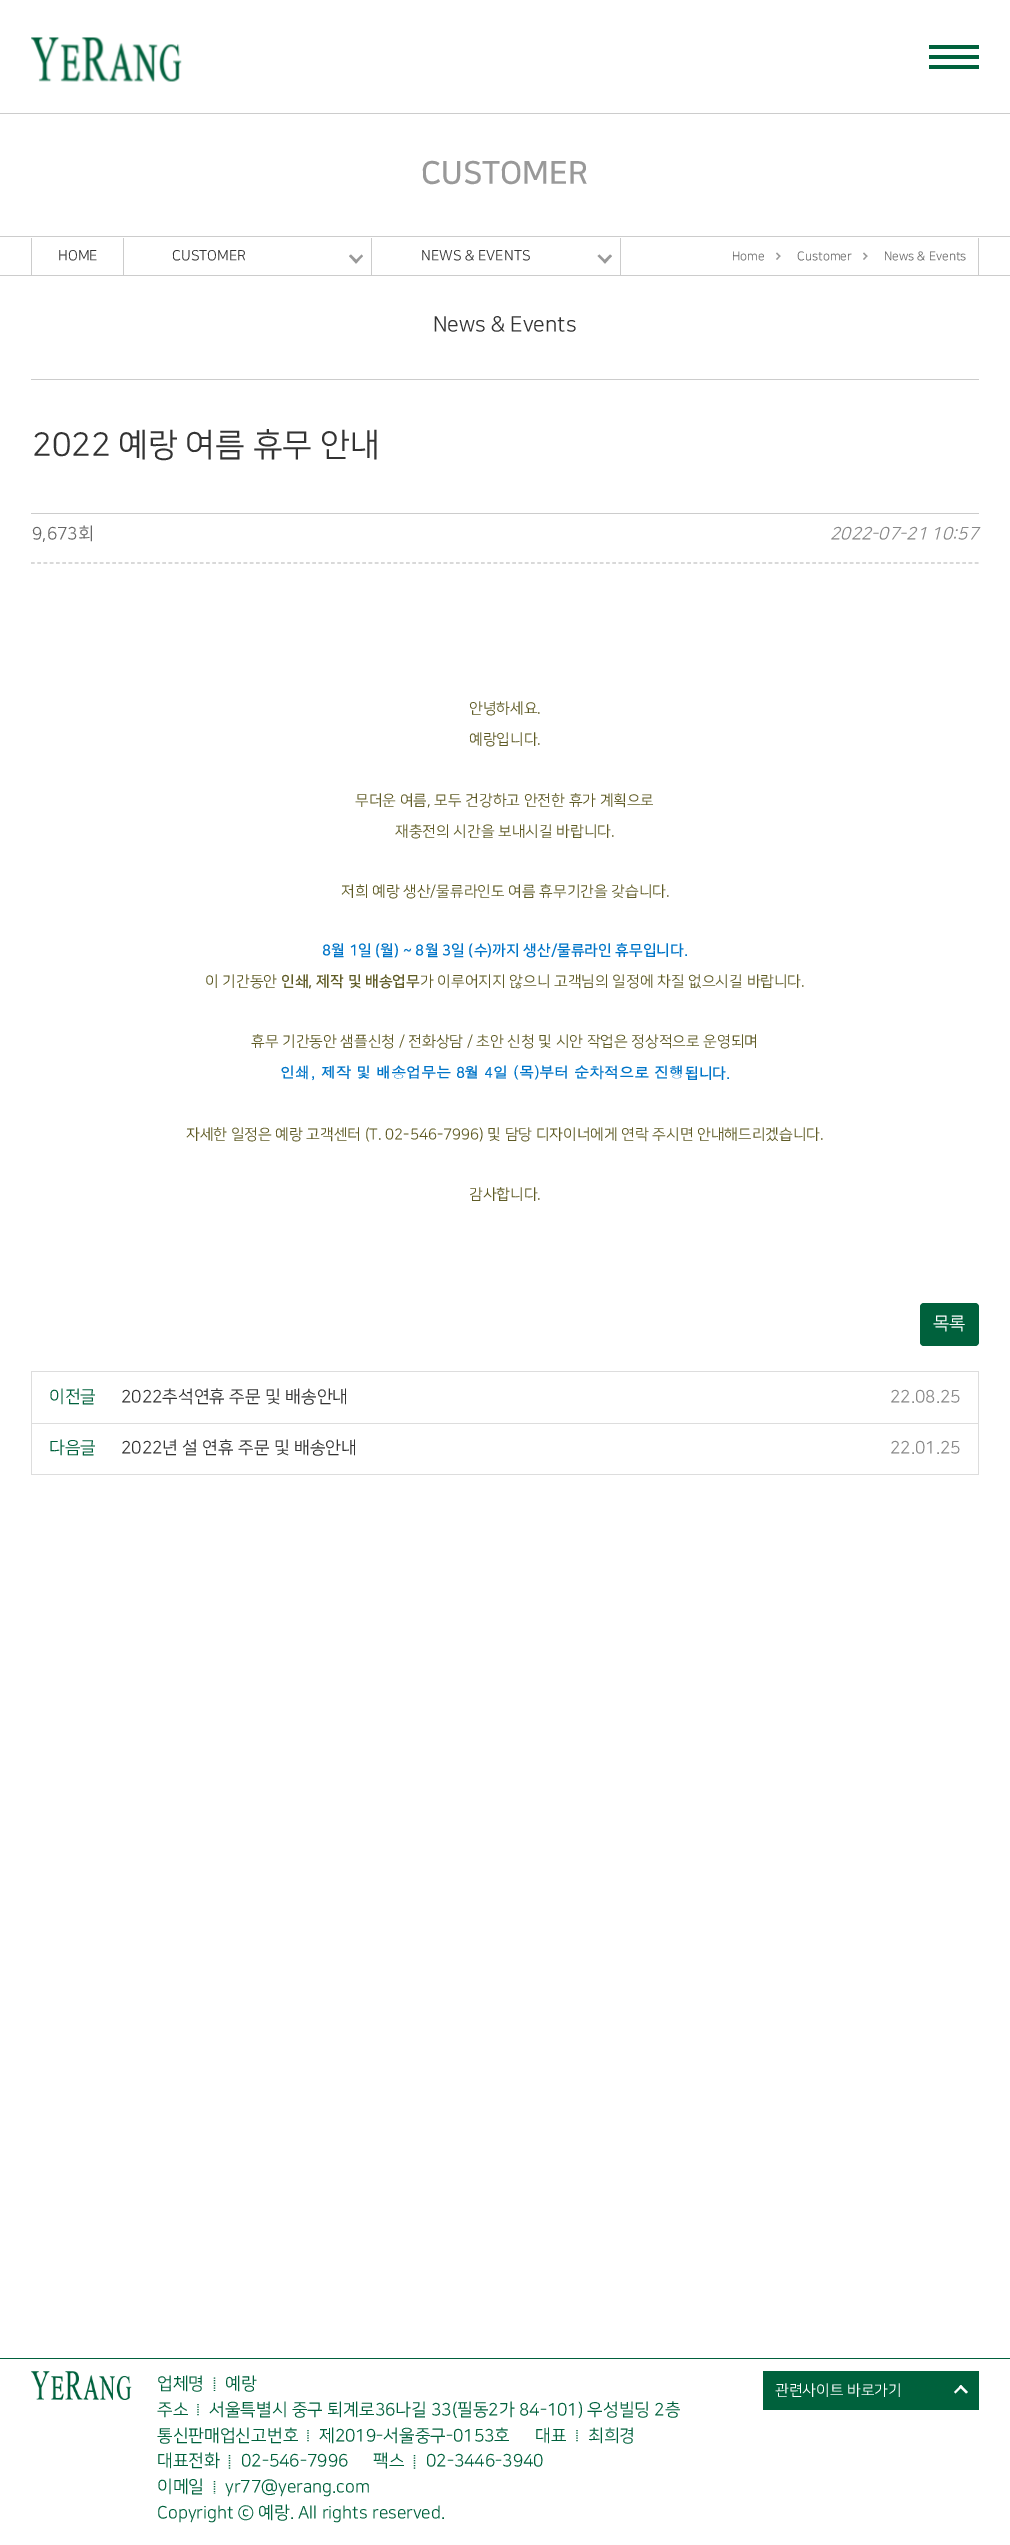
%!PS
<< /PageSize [1010 2545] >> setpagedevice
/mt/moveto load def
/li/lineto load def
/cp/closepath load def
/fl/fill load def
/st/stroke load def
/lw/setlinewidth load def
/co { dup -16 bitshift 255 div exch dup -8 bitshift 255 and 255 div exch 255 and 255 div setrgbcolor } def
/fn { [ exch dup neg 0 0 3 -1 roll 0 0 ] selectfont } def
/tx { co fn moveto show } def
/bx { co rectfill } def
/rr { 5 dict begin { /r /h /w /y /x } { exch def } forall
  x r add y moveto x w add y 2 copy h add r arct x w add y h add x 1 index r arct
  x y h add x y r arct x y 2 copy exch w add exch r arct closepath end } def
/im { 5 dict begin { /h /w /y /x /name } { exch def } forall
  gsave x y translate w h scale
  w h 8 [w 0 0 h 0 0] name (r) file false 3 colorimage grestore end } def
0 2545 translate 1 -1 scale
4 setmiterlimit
0 0 1010 2545 16#FFFFFF bx
(media/1.raw) 31 37 151 45 im
929 45 50 4 16#00613C bx
929 55 50 4 16#00613C bx
929 65 50 4 16#00613C bx
0 113 1010 1 16#CCCCCC bx
0 236 1010 1 16#CCCCCC bx
0 275 1010 1 16#CCCCCC bx
978 238 1 37 16#CCCCCC bx
123 238 1 37 16#CCCCCC bx
31 238 1 37 16#CCCCCC bx
371 238 1 37 16#CCCCCC bx
16#999999 co
361.5 254.5 mt 363 256 li 356 263.5 li 354.5 261.5 li cp fl
351 254.5 mt 358 261.5 li 356 263.5 li 349 256 li cp fl
620 238 1 37 16#CCCCCC bx
16#999999 co
610 254.5 mt 612 256 li 605 263.5 li 603 261.5 li cp fl
599.5 254.5 mt 606.5 261.5 li 605 263.5 li 597.5 256 li cp fl
777 252.5 mt 780.5 256 li 779.5 257 li 776 253.5 li cp fl
779.5 255.5 mt 780.5 256 li 777 260 li 776 259 li cp fl
864 252.5 mt 867.5 256 li 866.5 257 li 863 253.5 li cp fl
866.5 255.5 mt 867.5 256 li 864 260 li 863 259 li cp fl
31 379 948 1 16#CCCCCC bx
31 513 948 1 16#CCCCCC bx
1.2 lw
[3.75 2.5] 0 setdash
31 563 mt 979 563 li st
16#00613C co
920 1303 59 43 4 rr fl
31 1474 948 1 16#DDDDDD bx
31 1371 948 1 16#DDDDDD bx
978 1371 1 52 16#DDDDDD bx
31 1371 1 52 16#DDDDDD bx
31 1423 948 1 16#DDDDDD bx
978 1423 1 51 16#DDDDDD bx
31 1423 1 51 16#DDDDDD bx
0 2358 1010 1 16#00613C bx
(media/2.raw) 31 2371 101 29 im
[1.25 1.25] 0 setdash
214.5 2377.5 mt 214.5 2391 li st
198 2404 mt 198 2416 li st
308 2430 mt 308 2442.5 li st
577 2430 mt 577 2442.5 li st
229.5 2455 mt 229.5 2469 li st
414.5 2455 mt 414.5 2469 li st
214.5 2481 mt 214.5 2494 li st
763 2371 216 39 16#00613C bx
16#FFFFFF co
955.5 2393.5 mt 954 2392 li 961 2385 li 962.5 2386.5 li cp fl
966 2393.5 mt 959 2386.5 li 961 2385 li 968 2392 li cp fl
(CUSTOMER) 421 183 /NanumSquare-Bold 31.5 16#999999 tx
(HOME) 58 260 /NanumSquare-Regular 14.25 16#333333 tx
(CUSTOMER) 172 260 /NanumSquare-Regular 14.25 16#333333 tx
(NEWS & EVENTS) 421 260 /NanumSquare-Regular 14.25 16#333333 tx
(Home) 732 260 /NanumSquare-Regular 12.25 16#666666 tx
(Customer) 797 260 /NanumSquare-Regular 12.25 16#666666 tx
(News & Events) 884 260 /NanumSquare-Regular 12.25 16#666666 tx
(News & Events) 433 331 /NanumSquare-Regular 21.25 16#333333 tx
(2022 예랑 여름 휴무 안내) 32 455 /NanumSquare-Regular 32.5 16#333333 tx
(9,673회) 32 539 /NanumSquare-Regular 17.25 16#666666 tx
(2022-07-21 10:57) 830 539 /NanumSquare-Italic 17.25 16#888888 tx
(안녕하세요.) 469 713 /NanumSquare-Regular 15 16#5F5B25 tx
(예랑입니다.) 469 744 /NanumSquare-Regular 15 16#5F5B25 tx
(무더운 여름, 모두 건강하고 안전한 휴가 계획으로) 355 805 /NanumSquare-Regular 15 16#5F5B25 tx
(재충전의 시간을 보내시길 바랍니다.) 395 836 /NanumSquare-Regular 15 16#5F5B25 tx
(저희 예랑 생산/물류라인도 여름 휴무기간을 갖습니다.) 341 896 /NanumSquare-Regular 15 16#5F5B25 tx
(8월 1일 \(월\) ~ 8월 3일 \(수\)까지 생산/물류라인 휴무입니다.) 322 955 /NanumSquare-Bold 15 16#0075C8 tx
(이 기간동안) 205 986 /NanumSquare-Regular 15 16#5F5B25 tx
(인쇄, 제작 및 배송업무) 281 986 /NanumSquare-Bold 15 16#5F5B25 tx
(가 이루어지지 않으니 고객님의 일정에 차질 없으시길 바랍니다.) 420 986 /NanumSquare-Regular 15 16#5F5B25 tx
(휴무 기간동안 샘플신청 / 전화상담 / 초안 신청 및 시안 작업은 정상적으로 운영되며) 251 1046 /NanumSquare-Regular 15 16#5F5B25 tx
(인쇄, 제작 및 배송업무는 8월 4일 \(목\)부터 순차적으로 진행) 280 1078 /Dotum-Bold 15 16#0075C8 tx
(됩니다.) 685 1078 /NanumSquare-Bold 15 16#0075C8 tx
(자세한 일정은 예랑 고객센터 \(T. 02-546-7996\) 및 담당 디자이너에게 연락 주시면 안내해드리겠습니다.) 186 1139 /NanumSquare-Regular 15 16#5F5B25 tx
(감사합니다.) 469 1199 /NanumSquare-Regular 15 16#5F5B25 tx
(목록) 933 1329 /NanumSquare-Regular 18 16#FFFFFF tx
(이전글) 49 1402 /NanumSquare-Regular 17.25 16#00613C tx
(2022추석연휴 주문 및 배송안내) 121 1402 /NanumSquare-Regular 17.25 16#333333 tx
(22.08.25) 890 1402 /NanumSquare-Regular 17.25 16#888888 tx
(다음글) 49 1453 /NanumSquare-Regular 17.25 16#00613C tx
(2022년 설 연휴 주문 및 배송안내) 121 1453 /NanumSquare-Regular 17.25 16#333333 tx
(22.01.25) 890 1453 /NanumSquare-Regular 17.25 16#888888 tx
(업체명) 157 2389 /NanumSquare-Regular 17.25 16#00613C tx
(예랑) 225 2389 /NanumSquare-Regular 17.25 16#00613C tx
(주소) 157 2415 /NanumSquare-Regular 17.25 16#00613C tx
(서울특별시 중구 퇴계로36나길 33\(필동2가 84-101\) 우성빌딩 2층) 209 2415 /NanumSquare-Regular 17.25 16#00613C tx
(통신판매업신고번호) 157 2441 /NanumSquare-Regular 17.25 16#00613C tx
(제2019-서울중구-0153호) 319 2441 /NanumSquare-Regular 17.25 16#00613C tx
(대표) 535 2441 /NanumSquare-Regular 17.25 16#00613C tx
(최희경) 588 2441 /NanumSquare-Regular 17.25 16#00613C tx
(대표전화) 157 2466 /NanumSquare-Regular 17.25 16#00613C tx
(02-546-7996) 241 2466 /NanumSquare-Regular 17.25 16#00613C tx
(팩스) 373 2466 /NanumSquare-Regular 17.25 16#00613C tx
(02-3446-3940) 426 2466 /NanumSquare-Regular 17.25 16#00613C tx
(이메일) 157 2492 /NanumSquare-Regular 17.25 16#00613C tx
(yr77@yerang.com) 225 2492 /NanumSquare-Regular 17.25 16#00613C tx
(Copyright ⓒ 예랑. All rights reserved.) 157 2518 /NanumSquare-Regular 17.25 16#00613C tx
(관련사이트 바로가기) 775 2395 /NanumSquare-Regular 15 16#FFFFFF tx
showpage
